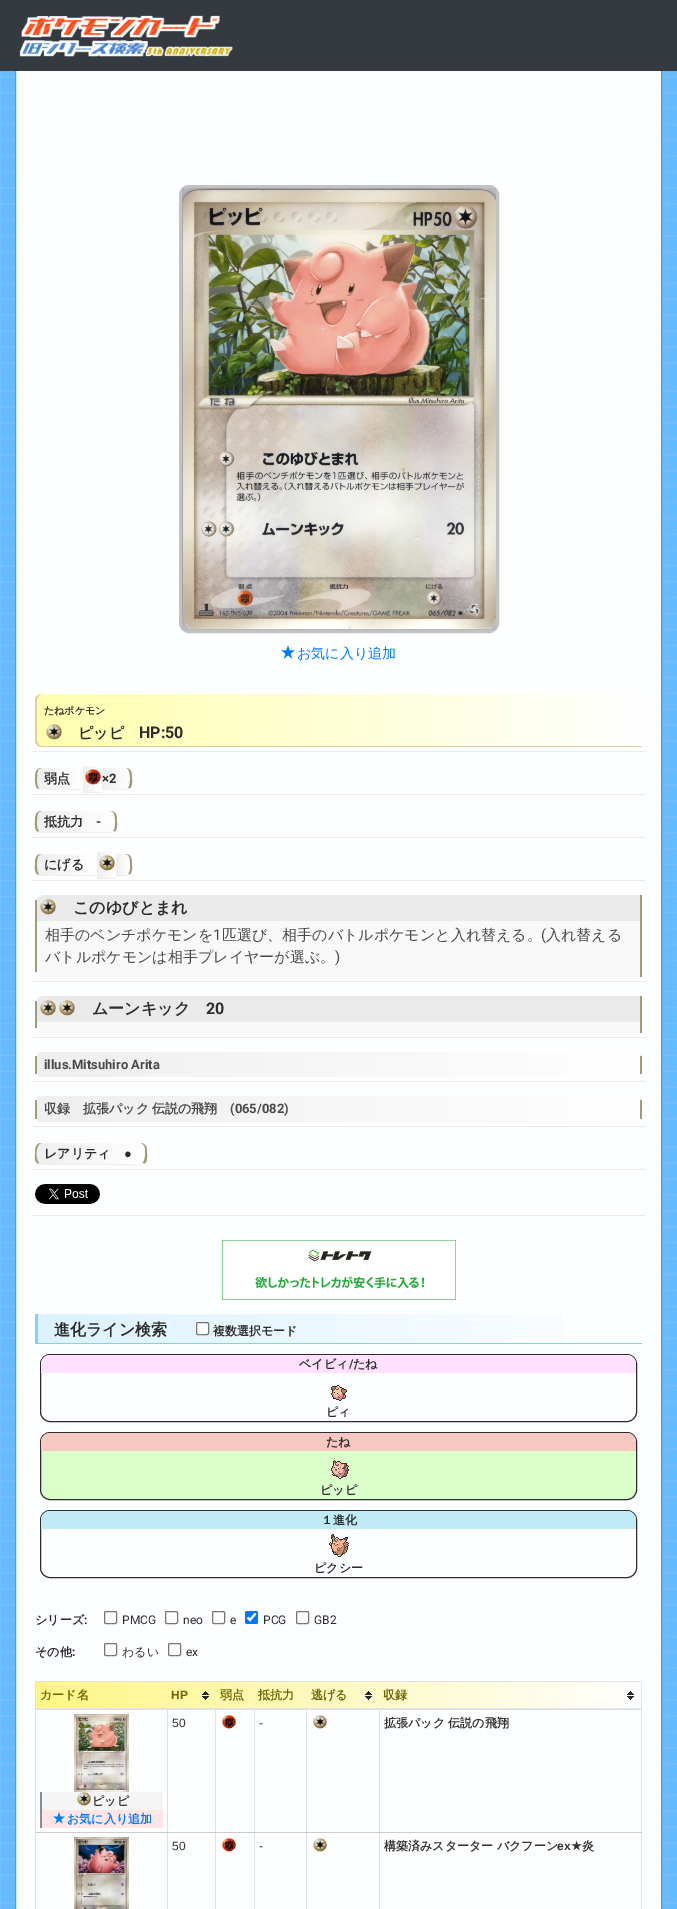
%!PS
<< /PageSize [677 1909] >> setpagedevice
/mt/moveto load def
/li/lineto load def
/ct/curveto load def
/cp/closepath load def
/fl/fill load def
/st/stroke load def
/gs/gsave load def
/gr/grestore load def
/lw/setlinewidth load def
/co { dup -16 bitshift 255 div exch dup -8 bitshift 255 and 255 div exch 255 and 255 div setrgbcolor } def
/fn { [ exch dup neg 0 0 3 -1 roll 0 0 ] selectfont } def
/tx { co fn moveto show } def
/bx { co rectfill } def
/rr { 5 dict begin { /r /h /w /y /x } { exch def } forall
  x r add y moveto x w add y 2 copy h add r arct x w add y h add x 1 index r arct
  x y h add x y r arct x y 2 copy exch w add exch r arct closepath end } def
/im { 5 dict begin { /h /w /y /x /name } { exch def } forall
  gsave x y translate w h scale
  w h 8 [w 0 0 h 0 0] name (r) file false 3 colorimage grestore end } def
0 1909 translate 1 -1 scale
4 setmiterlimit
0 0 677 1909 16#FFFFFF bx
(media/1.raw) 0 71 677 1838 im
16 71 645 1838 16#FDFEFF bx
16#3AAACC co
15.5 55.5 646 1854 rectstroke
0 0 677 71 16#343A40 bx
(media/2.raw) 19 15 214 42 im
16#C2C2C3 co
3 lw
180.5 186.5 317 445 8.5 rr st
(media/3.raw) 182 188 314 442 im
(media/4.raw) 281 645 14 14 im
31 751 615 1 16#EAEAEA bx
gs
42 694 mt 642 694 li 642 747 li 42 747 li 38 747 35 744 35 740 ct 35 701 li 35 697 38 694 42 694 ct cp clip newpath
gs 37 694 mt 642 694 li 642 747 li 37 747 li cp clip newpath
<< /ShadingType 2 /ColorSpace /DeviceRGB /Coords [37 720 642 720] /Extend [true true] /Function << /FunctionType 2 /Domain [0 1] /C0 [.996 1 .682] /C1 [1 1 1] /N 1 >> >> shfill gr
gr
16#E4CE9B co
42 694 mt 642 694 li 642 747 li 42 747 li 38 747 35 744 35 740 ct 35 701 li 35 697 38 694 42 694 ct cp 42 694 mt 642 694 li 642 746 li 42 746 li 39 746 37 743 37 740 ct 37 701 li 37 697 39 694 42 694 ct cp eofill
(media/5.raw) 46 724 16 16 im
31 794 615 1 16#EAEAEA bx
gs
42 768 mt 83 768 li 83 790 li 42 790 li 38 790 35 787 35 783 ct 35 775 li 35 771 38 768 42 768 ct cp clip newpath
gs 37 768 mt 83 768 li 83 790 li 37 790 li cp clip newpath
<< /ShadingType 2 /ColorSpace /DeviceRGB /Coords [37 779 83 779] /Extend [true true] /Function << /FunctionType 2 /Domain [0 1] /C0 [.937 .937 .937] /C1 [1 1 1] /N 1 >> >> shfill gr
gr
16#EFEFEF co
83 790 mt 83 789 li 42 789 li 41 789 40 789 39 788 ct 38 789 li 40 790 li cp fl
16#A29A7B co
42 768 mt 35 768 35 775 35 780 ct 35 784.5 36 787 37.5 788.5 ct 39 788 li 36.5 785.5 37 782 37 779 ct 37 775.5 36.5 768 42 768 ct cp fl
gs 83 766 mt 99 766 li 99 792 li 83 792 li cp clip newpath
<< /ShadingType 2 /ColorSpace /DeviceRGB /Coords [83 779 102 779] /Extend [true true] /Function << /FunctionType 2 /Domain [0 1] /C0 [.937 .937 .937] /C1 [1 1 1] /N 1 >> >> shfill gr
(media/6.raw) 85 769 16 16 im
83 792 19 1 16#EFEFEF bx
gs
102 768 mt 125 768 li 129 768 132 771 132 775 ct 132 783 li 132 787 129 790 125 790 ct 102 790 li cp clip newpath
gs 102 768 mt 130 768 li 130 790 li 102 790 li cp clip newpath
<< /ShadingType 2 /ColorSpace /DeviceRGB /Coords [102 779 130 779] /Extend [true true] /Function << /FunctionType 2 /Domain [0 1] /C0 [.937 .937 .937] /C1 [1 1 1] /N 1 >> >> shfill gr
gs 130 768 mt 132 768 li 132 790 li 130 790 li cp clip newpath
<< /ShadingType 2 /ColorSpace /DeviceRGB /Coords [130 779 158 779] /Extend [true true] /Function << /FunctionType 2 /Domain [0 1] /C0 [.937 .937 .937] /C1 [1 1 1] /N 1 >> >> shfill gr
gr
16#A29A7B co
129.5 788.5 mt 128 788 li 130.5 786 130.5 774 129 771 ct 128.5 769.5 127.5 768.5 126.5 768 ct 132 769 132 774.5 132 779 ct 132 782.5 132.5 786.5 129.5 788.5 ct cp 126 768 mt 125 768 li 126.5 768 li cp eofill
16#EFEFEF co
102 789 mt 102 790 li 125 790 li 126.5 790 128 789.5 129.5 788.5 ct 128 788 li 127 788.5 126 789 125 789 ct cp fl
31 837 615 1 16#EAEAEA bx
gs
35 811 82 22 7 rr clip newpath
gs 37 811 mt 115 811 li 115 833 li 37 833 li cp clip newpath
<< /ShadingType 2 /ColorSpace /DeviceRGB /Coords [37 822 115 822] /Extend [true true] /Function << /FunctionType 2 /Domain [0 1] /C0 [.937 .937 .937] /C1 [1 1 1] /N 1 >> >> shfill gr
gs 115 811 mt 117 811 li 117 833 li 115 833 li cp clip newpath
<< /ShadingType 2 /ColorSpace /DeviceRGB /Coords [115 822 193 822] /Extend [true true] /Function << /FunctionType 2 /Domain [0 1] /C0 [.937 .937 .937] /C1 [1 1 1] /N 1 >> >> shfill gr
gr
16#A29A7B co
114.5 831.5 mt 117.5 829.5 117 825.5 117 822 ct 117 817 117 811 110 811 ct 115.5 811 115 818.5 115 822 ct 115 825 115.5 828.5 113 831 ct cp fl
16#EFEFEF co
39 831 mt 42 832 li 110 832 li 113 831 li 114 832 li 113 832 112 833 110 833 ct 42 833 li 40 833 39 832 38 832 ct cp fl
16#A29A7B co
42 811 mt 35 811 35 817 35 822 ct 35 825.5 34.5 829.5 37.5 831.5 ct 39 831 li 36.5 828.5 37 825 37 822 ct 37 818.5 36.5 811 42 811 ct cp fl
31 880 615 1 16#EAEAEA bx
gs
42 854 mt 97 854 li 97 876 li 42 876 li 38 876 35 873 35 869 ct 35 861 li 35 857 38 854 42 854 ct cp clip newpath
gs 37 854 mt 97 854 li 97 876 li 37 876 li cp clip newpath
<< /ShadingType 2 /ColorSpace /DeviceRGB /Coords [37 865 97 865] /Extend [true true] /Function << /FunctionType 2 /Domain [0 1] /C0 [.937 .937 .937] /C1 [1 1 1] /N 1 >> >> shfill gr
gr
16#EFEFEF co
97 876 mt 97 875 li 42 875 li 41 875 40 875 39 874 ct 38 875 li 39 875 40 876 42 876 ct cp fl
16#A29A7B co
42 854 mt 35 854 35 860 35 865 ct 35 868.5 34.5 872.5 37.5 874.5 ct 39 874 li 36.5 871.5 37 868 37 865 ct 37 861.5 36.5 854 42 854 ct cp fl
gs 97 852 mt 113 852 li 113 878 li 97 878 li cp clip newpath
<< /ShadingType 2 /ColorSpace /DeviceRGB /Coords [97 865 116 865] /Extend [true true] /Function << /FunctionType 2 /Domain [0 1] /C0 [.937 .937 .937] /C1 [1 1 1] /N 1 >> >> shfill gr
97 878 19 1 16#EFEFEF bx
gs
116 854 mt 125 854 li 129 854 132 857 132 861 ct 132 869 li 132 873 129 876 125 876 ct 116 876 li cp clip newpath
gs 116 854 mt 130 854 li 130 876 li 116 876 li cp clip newpath
<< /ShadingType 2 /ColorSpace /DeviceRGB /Coords [116 865 130 865] /Extend [true true] /Function << /FunctionType 2 /Domain [0 1] /C0 [.937 .937 .937] /C1 [1 1 1] /N 1 >> >> shfill gr
gs 130 854 mt 132 854 li 132 876 li 130 876 li cp clip newpath
<< /ShadingType 2 /ColorSpace /DeviceRGB /Coords [130 865 144 865] /Extend [true true] /Function << /FunctionType 2 /Domain [0 1] /C0 [.937 .937 .937] /C1 [1 1 1] /N 1 >> >> shfill gr
gr
16#A29A7B co
129.5 874.5 mt 132.5 872.5 132 868.5 132 865 ct 132 860 132 854 125 854 ct 130.5 854 130 861.5 130 865 ct 130 868 130.5 872 128 874 ct cp fl
16#EFEFEF co
116 875 mt 116 876 li 119.5 876 126 877 129.5 874.5 ct 128 874 li 125.5 876 119 875 116 875 ct cp fl
(media/7.raw) 99 855 16 16 im
31 981 615 1 16#EAEAEA bx
45 895 mt 642 895 li 642 921 li 35 921 li 35 905 li 35 899.5 39.5 895 45 895 ct cp fl
640 895 2 26 16#A29A7B bx
35 900 2 21 16#A29A7B bx
(media/8.raw) 40 899 16 16 im
16#F9F9F9 co
35 921 mt 642 921 li 642 977 li 45 977 li 39.5 977 35 972.5 35 967 ct cp fl
640 921 2 56 16#A29A7B bx
35 921 2 51 16#A29A7B bx
31 1037 615 1 16#EAEAEA bx
45 996 mt 642 996 li 642 1022 li 35 1022 li 35 1006 li 35 1000.5 39.5 996 45 996 ct cp fl
640 996 2 26 16#A29A7B bx
35 1001 2 21 16#A29A7B bx
(media/8.raw) 40 1000 16 16 im
(media/8.raw) 59 1000 16 16 im
16#F9F9F9 co
35 1022 mt 642 1022 li 642 1033 li 45 1033 li 39.5 1033 35 1028.5 35 1023 ct cp fl
640 1022 2 11 16#A29A7B bx
35 1022 2 6 16#A29A7B bx
31 1081 615 1 16#EAEAEA bx
gs
35 1052 607 25 7 rr clip newpath
gs 37 1052 mt 640 1052 li 640 1077 li 37 1077 li cp clip newpath
<< /ShadingType 2 /ColorSpace /DeviceRGB /Coords [37 1065 640 1065] /Extend [true true] /Function << /FunctionType 2 /Domain [0 1] /C0 [.937 .937 .937] /C1 [1 1 1] /N 1 >> >> shfill gr
gs 640 1052 mt 642 1052 li 642 1077 li 640 1077 li cp clip newpath
<< /ShadingType 2 /ColorSpace /DeviceRGB /Coords [640 1065 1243 1065] /Extend [true true] /Function << /FunctionType 2 /Domain [0 1] /C0 [.937 .937 .937] /C1 [1 1 1] /N 1 >> >> shfill gr
gr
640 1056 2 18 16#A29A7B bx
35 1056 2 18 16#A29A7B bx
31 1126 615 1 16#EAEAEA bx
gs
35 1096 607 26 7 rr clip newpath
gs 37 1096 mt 640 1096 li 640 1122 li 37 1122 li cp clip newpath
<< /ShadingType 2 /ColorSpace /DeviceRGB /Coords [37 1109 640 1109] /Extend [true true] /Function << /FunctionType 2 /Domain [0 1] /C0 [.937 .937 .937] /C1 [1 1 1] /N 1 >> >> shfill gr
gs 640 1096 mt 642 1096 li 642 1122 li 640 1122 li cp clip newpath
<< /ShadingType 2 /ColorSpace /DeviceRGB /Coords [640 1109 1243 1109] /Extend [true true] /Function << /FunctionType 2 /Domain [0 1] /C0 [.937 .937 .937] /C1 [1 1 1] /N 1 >> >> shfill gr
gr
640 1100 2 19 16#A29A7B bx
35 1100 2 19 16#A29A7B bx
31 1169 615 1 16#EAEAEA bx
gs
35 1143 112 22 7 rr clip newpath
gs 37 1143 mt 145 1143 li 145 1165 li 37 1165 li cp clip newpath
<< /ShadingType 2 /ColorSpace /DeviceRGB /Coords [37 1154 145 1154] /Extend [true true] /Function << /FunctionType 2 /Domain [0 1] /C0 [.937 .937 .937] /C1 [1 1 1] /N 1 >> >> shfill gr
gs 145 1143 mt 147 1143 li 147 1165 li 145 1165 li cp clip newpath
<< /ShadingType 2 /ColorSpace /DeviceRGB /Coords [145 1154 253 1154] /Extend [true true] /Function << /FunctionType 2 /Domain [0 1] /C0 [.937 .937 .937] /C1 [1 1 1] /N 1 >> >> shfill gr
gr
16#A29A7B co
144.5 1163.5 mt 142.5 1163 li 144 1161.5 145 1159 145 1155 ct 145 1149 li 145 1146 143 1144 141 1143 ct 147 1144 147 1149.5 147 1154 ct 147 1157.5 147.5 1161.5 144.5 1163.5 ct cp 141 1143 mt 140 1143 li cp eofill
16#EFEFEF co
39 1163 mt 40 1164 li 63 1164 li 118 1164 li 138 1165 li 140 1164 141 1164 143 1163 ct 144 1164 li 139 1167 124 1165 124 1165 ct 41 1165 li 38 1164 li cp fl
16#A29A7B co
42 1143 mt 35 1143 35 1149 35 1154 ct 35 1157.5 34.5 1161.5 37.5 1163.5 ct 39 1163 li 35 1158.5 35.5 1143 42 1143 ct cp fl
31 1215 615 1 16#EAEAEA bx
(media/9.raw) 35 1184 65 20 im
(media/10.raw) 222 1240 234 60 im
gs 38 1314 mt 564 1314 li 564 1343 li 38 1343 li cp clip newpath
<< /ShadingType 2 /ColorSpace /DeviceRGB /Coords [38 1329 642 1329] /Extend [true true] /Function << /FunctionType 2 /Domain [0 1] /C0 [.863 .953 1] /C1 [1 1 1] /N 1 >> >> shfill gr
35 1343 607 1 16#80D0FF bx
35 1314 3 30 16#80D0FF bx
16#FFFFFF co
196.5 1322.5 12 12 1.5 rr gs fl gr
16#767676 co
1 lw
st
16#2C2C2F co
40.5 1354.5 596 67 9.5 rr st
16#FFE1FF co
50 1355 mt 627 1355 li 632 1355 636 1359 636 1364 ct 636 1373 li 41 1373 li 41 1364 li 41 1359 45 1355 50 1355 ct cp fl
(media/11.raw) 331 1385 16 16 im
16#DBFFCB co
40.5 1432.5 596 67 9.5 rr gs fl gr
16#2C2C2F co
st
16#F7C8C1 co
50 1433 mt 627 1433 li 632 1433 636 1437 636 1442 ct 636 1451 li 41 1451 li 41 1442 li 41 1437 45 1433 50 1433 ct cp fl
(media/12.raw) 331 1460 18 19 im
16#2C2C2F co
40.5 1510.5 596 67 9.5 rr st
16#C1EAF7 co
50 1511 mt 627 1511 li 632 1511 636 1515 636 1520 ct 636 1529 li 41 1529 li 41 1520 li 41 1515 45 1511 50 1511 ct cp fl
(media/13.raw) 329 1534 20 23 im
16#767676 co
104.5 1611.5 12 12 1.5 rr st
165.5 1611.5 12 12 1.5 rr st
212.5 1611.5 12 12 1.5 rr st
16#0075FF co
245 1611 13 13 2 rr fl
16#FFFFFF co
2.1 lw
247.5 1617.5 mt 250 1620 li 255.5 1613.5 li st
16#767676 co
1 lw
296.5 1611.5 12 12 1.5 rr st
104.5 1643.5 12 12 1.5 rr st
168.5 1643.5 12 12 1.5 rr st
35 1681 607 1 16#DEE2E6 bx
641 1681 1 228 16#DEE2E6 bx
35 1681 1 228 16#DEE2E6 bx
gs 36 1682 mt 629 1682 li 629 1708 li 36 1708 li cp clip newpath
<< /ShadingType 2 /ColorSpace /DeviceRGB /Coords [36 1696 642 1696] /Extend [true true] /Function << /FunctionType 2 /Domain [0 1] /C0 [1 .965 .529] /C1 [1 1 1] /N 1 >> >> shfill gr
(media/14.raw) 202 1691 7 9 im
(media/15.raw) 365 1691 7 9 im
(media/16.raw) 627 1691 7 9 im
379 1832 1 77 16#DEE2E6 bx
379 1832 263 1 16#CCCCCC bx
379 1709 1 124 16#DEE2E6 bx
306 1832 1 77 16#DEE2E6 bx
306 1832 74 1 16#CCCCCC bx
306 1709 1 124 16#DEE2E6 bx
254 1832 1 77 16#DEE2E6 bx
254 1832 53 1 16#CCCCCC bx
254 1709 1 124 16#DEE2E6 bx
215 1832 1 77 16#DEE2E6 bx
215 1832 40 1 16#CCCCCC bx
215 1709 1 124 16#DEE2E6 bx
167 1832 1 77 16#DEE2E6 bx
167 1832 49 1 16#CCCCCC bx
167 1709 1 124 16#DEE2E6 bx
35 1708 607 2 16#DEE2E6 bx
(media/17.raw) 222 1715 14 14 im
(media/18.raw) 313 1715 14 14 im
35 1832 133 1 16#CCCCCC bx
35 1832 1 1 16#DEE2E6 bx
(media/19.raw) 74 1714 55 78 im
42 1792 121 18 16#F5F5F5 bx
40 1792 2 36 16#828E98 bx
(media/20.raw) 77 1792 14 14 im
42 1810 121 18 16#FFE5E5 bx
(media/21.raw) 53 1812 12 12 im
(media/22.raw) 74 1837 55 72 im
(media/17.raw) 222 1838 14 14 im
(media/18.raw) 313 1838 14 14 im
(お気に入り追加) 297 658 /WenQuanYiZenHei-Medium 14 16#007BFF tx
(たねポケモン) 44 714 /WenQuanYiZenHei-Bold 10 16#2C2C2F tx
(ピッピ) 78 738 /WenQuanYiZenHei-Bold 15 16#2C2C2F tx
(HP:50) 139 738 /Roboto-Bold 16 16#2C2C2F tx
(弱点) 44 783 /WenQuanYiZenHei-Bold 13 16#2C2C2F tx
(×2) 102 783 /Roboto-Bold 13 16#2C2C2F tx
(抵抗力) 44 826 /WenQuanYiZenHei-Bold 13 16#2C2C2F tx
(-) 96 826 /Roboto-Bold 13 16#2C2C2F tx
(にげる) 44 869 /WenQuanYiZenHei-Bold 13 16#2C2C2F tx
(このゆびとまれ) 73 913 /WenQuanYiZenHei-Bold 16 16#2C2C2F tx
(相手のベンチポケモンを) 45 940 /WenQuanYiZenHei-Medium 15 16#494949 tx
(1) 213 940 /Roboto-Regular 15 16#494949 tx
(匹選び、相手のバトルポケモンと入れ替える。) 222 940 /WenQuanYiZenHei-Medium 15 16#494949 tx
(\() 541 940 /Roboto-Regular 15 16#494949 tx
(入れ替える) 546 940 /WenQuanYiZenHei-Medium 15 16#494949 tx
(バトルポケモンは相手プレイヤーが選ぶ。) 45 962 /WenQuanYiZenHei-Medium 15 16#494949 tx
(\)) 335 962 /Roboto-Regular 15 16#494949 tx
(ムーンキック) 92 1014 /WenQuanYiZenHei-Bold 16 16#2C2C2F tx
(20) 206 1014 /Roboto-Bold 16 16#2C2C2F tx
(illus.Mitsuhiro Arita) 44 1069 /Roboto-Bold 13 16#494949 tx
/WenQuanYiZenHei-Bold 13 fn
44 1113 mt -1 0 32 (収録　拡張パック 伝説の飛翔) widthshow
(\(065/082\)) 230 1113 /Roboto-Bold 13 16#494949 tx
(レアリティ) 44 1158 /WenQuanYiZenHei-Bold 13 16#2C2C2F tx
(●) 124 1158 /LiberationSans-Bold 13 16#2C2C2F tx
(進化ライン検索) 54 1335 /WenQuanYiZenHei-Bold 16 16#2C2C2F tx
(複数選択モード) 213 1335 /WenQuanYiZenHei-Bold 12 16#2C2C2F tx
(ベイビィ) 299 1368 /WenQuanYiZenHei-Bold 12 16#2C2C2F tx
(/) 349 1368 /Roboto-Bold 12 16#2C2C2F tx
(たね) 353 1368 /WenQuanYiZenHei-Bold 12 16#2C2C2F tx
(ピィ) 326 1416 /WenQuanYiZenHei-Bold 12 16#2C2C2F tx
(たね) 326 1446 /WenQuanYiZenHei-Bold 12 16#2C2C2F tx
(ピッピ) 320 1494 /WenQuanYiZenHei-Bold 12 16#2C2C2F tx
(１進化) 321 1524 /WenQuanYiZenHei-Bold 12 16#2C2C2F tx
(ピクシー) 314 1572 /WenQuanYiZenHei-Bold 12 16#2C2C2F tx
(シリーズ) 35 1624 /WenQuanYiZenHei-Bold 12 16#2C2C2F tx
(:) 84 1624 /Roboto-Bold 12 16#2C2C2F tx
(PMCG) 122 1624 /Roboto-Regular 12 16#2C2C2F tx
(neo) 183 1624 /Roboto-Regular 12 16#2C2C2F tx
(e) 230 1624 /Roboto-Regular 12 16#2C2C2F tx
(PCG) 263 1624 /Roboto-Regular 12 16#2C2C2F tx
(GB2) 314 1624 /Roboto-Regular 12 16#2C2C2F tx
(その他) 35 1656 /WenQuanYiZenHei-Bold 12 16#2C2C2F tx
(:) 72 1656 /Roboto-Bold 12 16#2C2C2F tx
(わるい) 122 1656 /WenQuanYiZenHei-Medium 12 16#2C2C2F tx
(ex) 186 1656 /Roboto-Regular 12 16#2C2C2F tx
(カード名) 40 1699 /WenQuanYiZenHei-Bold 12 16#6F6600 tx
(HP) 171 1699 /LiberationSans-Bold 12 16#6F6600 tx
(弱点) 220 1699 /WenQuanYiZenHei-Bold 12 16#6F6600 tx
(抵抗力) 258 1699 /WenQuanYiZenHei-Bold 12 16#6F6600 tx
(逃げる) 311 1699 /WenQuanYiZenHei-Bold 12 16#6F6600 tx
(収録) 383 1699 /WenQuanYiZenHei-Bold 12 16#6F6600 tx
(50) 172 1727 /LiberationSans-Regular 12 16#333333 tx
(-) 259 1727 /LiberationSans-Regular 12 16#333333 tx
(拡張パック 伝説の飛翔) 384 1727 /WenQuanYiZenHei-Bold 12 16#333333 tx
(ピッピ) 92 1805 /WenQuanYiZenHei-Bold 12 16#333333 tx
(お気に入り追加) 67 1823 /WenQuanYiZenHei-Bold 12 16#007BFF tx
(50) 172 1850 /LiberationSans-Regular 12 16#333333 tx
(-) 259 1850 /LiberationSans-Regular 12 16#333333 tx
(構築済みスターター バクフーン) 384 1850 /WenQuanYiZenHei-Bold 12 16#333333 tx
(ex) 557 1850 /LiberationSans-Bold 12 16#333333 tx
(★) 571 1850 /DejaVuSans-Bold 12 16#333333 tx
(炎) 582 1850 /WenQuanYiZenHei-Bold 12 16#333333 tx
showpage
